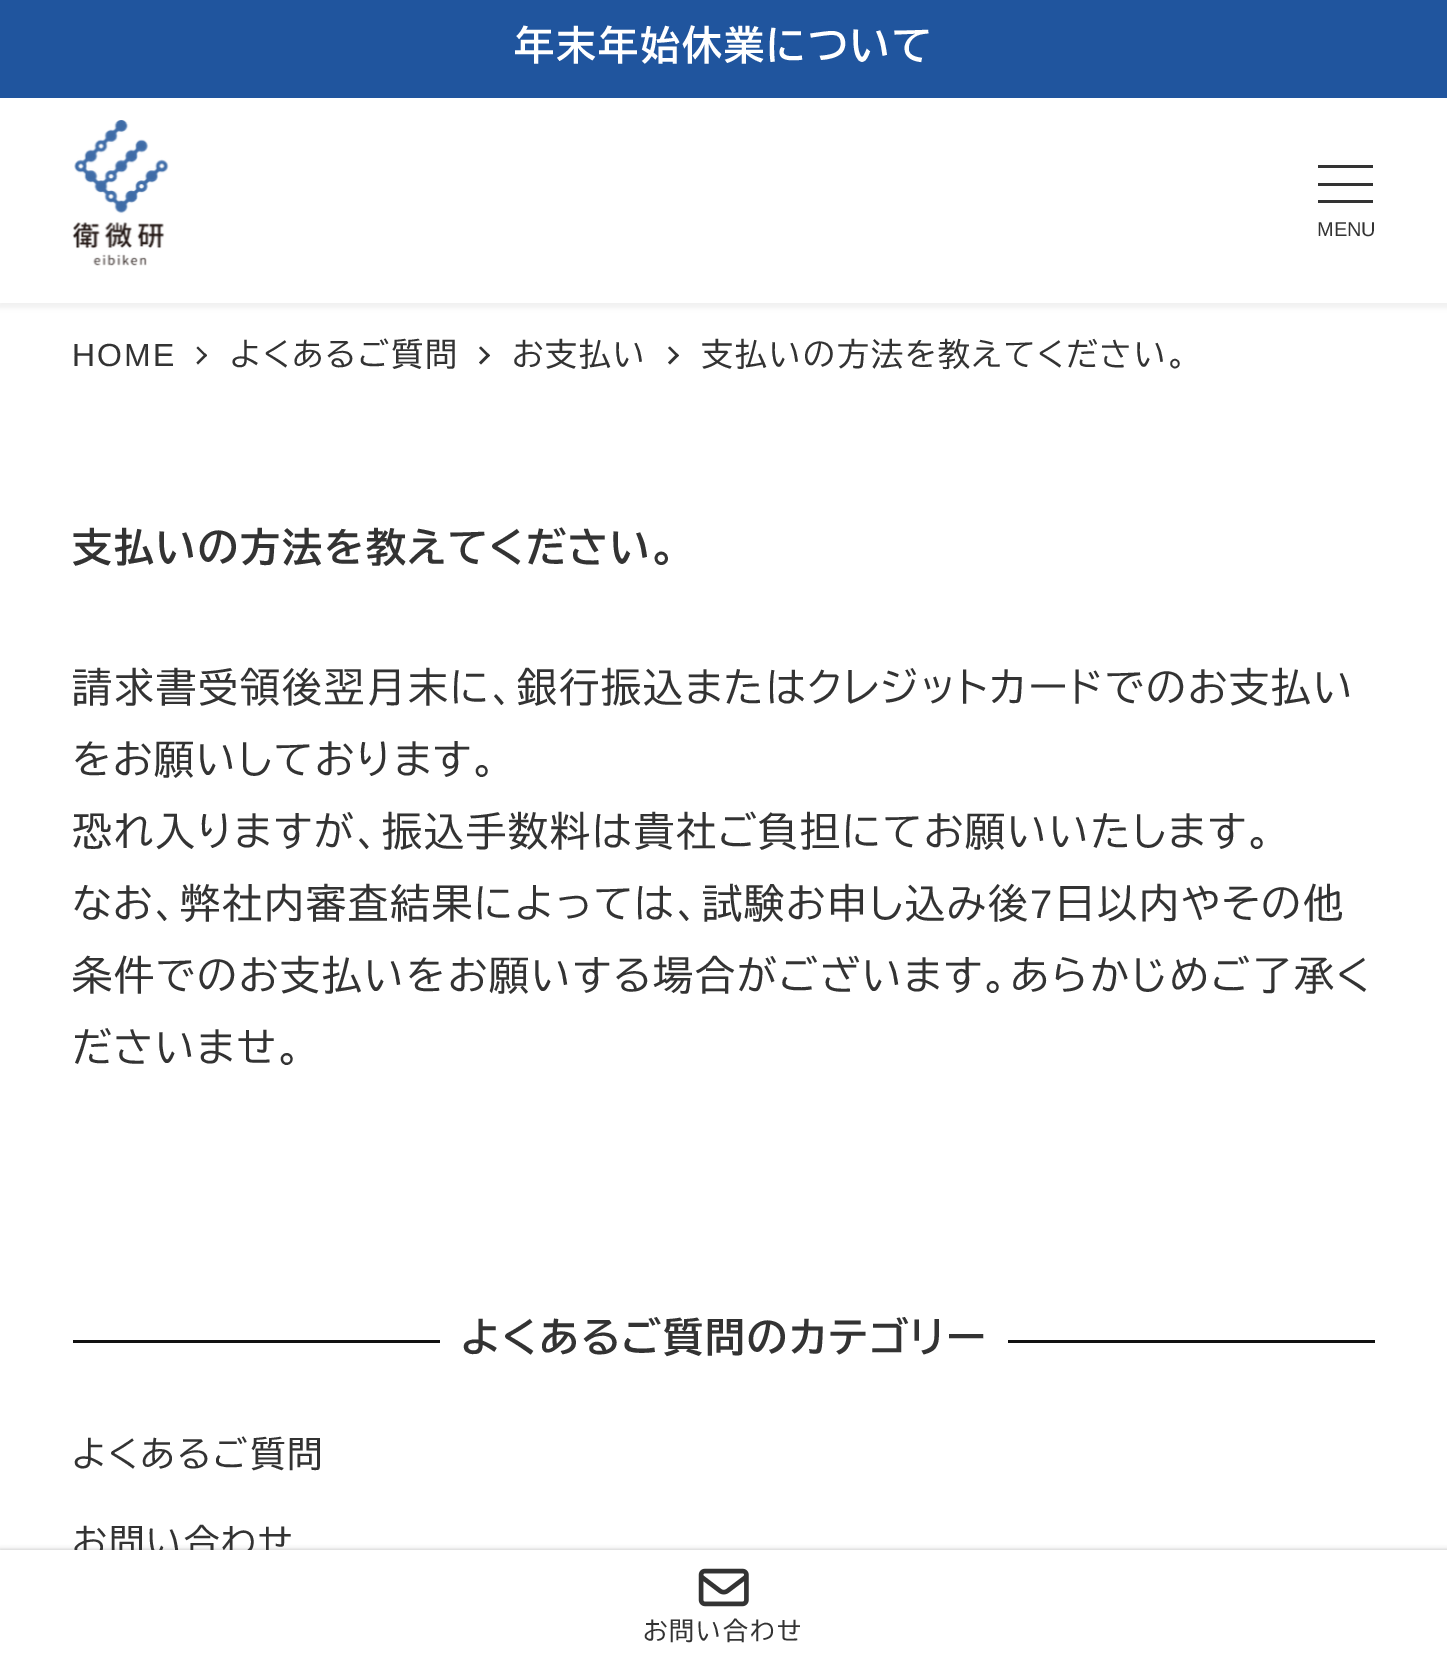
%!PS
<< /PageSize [1447 1660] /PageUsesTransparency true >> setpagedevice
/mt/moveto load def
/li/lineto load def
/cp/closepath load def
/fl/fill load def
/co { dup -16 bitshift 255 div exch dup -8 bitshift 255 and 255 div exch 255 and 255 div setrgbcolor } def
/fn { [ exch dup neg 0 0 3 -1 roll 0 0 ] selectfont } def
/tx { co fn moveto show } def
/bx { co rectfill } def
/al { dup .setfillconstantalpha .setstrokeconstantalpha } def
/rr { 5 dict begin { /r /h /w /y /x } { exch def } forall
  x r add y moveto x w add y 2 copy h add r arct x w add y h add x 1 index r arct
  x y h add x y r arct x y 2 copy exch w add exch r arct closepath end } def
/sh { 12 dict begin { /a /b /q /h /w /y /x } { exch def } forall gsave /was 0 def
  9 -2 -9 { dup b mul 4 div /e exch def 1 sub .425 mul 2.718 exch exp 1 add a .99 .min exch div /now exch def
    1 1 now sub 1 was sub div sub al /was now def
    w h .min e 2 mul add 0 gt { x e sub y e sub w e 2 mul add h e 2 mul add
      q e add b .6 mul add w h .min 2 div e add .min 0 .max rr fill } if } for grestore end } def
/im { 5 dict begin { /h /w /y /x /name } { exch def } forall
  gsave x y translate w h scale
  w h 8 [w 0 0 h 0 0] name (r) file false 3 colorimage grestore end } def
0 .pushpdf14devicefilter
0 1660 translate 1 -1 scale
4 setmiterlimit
0 0 1447 1660 16#FFFFFF bx
16#000000 co
-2 0 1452 308 0 2.5 .05 sh
0 98 1447 205 16#FFFFFF bx
0 0 1447 98 16#20559E bx
(media/1.raw) 72 120 97 146 im
1318 165 55 3 16#333333 bx
1318 183 55 3 16#333333 bx
1318 200 55 3 16#333333 bx
198 346.5 mt 207 355.5 li 205.5 357 li 196.5 348 li cp fl
205.5 353.5 mt 207 355.5 li 198 364.5 li 196.5 362.5 li cp fl
481 346.5 mt 490 355.5 li 488 357 li 479 348 li cp fl
488 353.5 mt 490 355.5 li 481 364.5 li 479 362.5 li cp fl
670 346.5 mt 679 355.5 li 677 357 li 668 348 li cp fl
677 353.5 mt 679 355.5 li 670 364.5 li 668 362.5 li cp fl
73 1340 367 3 16#111111 bx
1008 1340 367 3 16#111111 bx
16#000000 co
0 1550 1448 110 0 2.5 .25 sh
/BIZUDPGothic-Bold 40 fn
16#FFFFFF co
514 60 mt 2 0 (年末年始休業について) ashow
(MENU) 1317 236 /LiberationSans-Regular 20 16#333333 tx
/LiberationSans-Regular 32 fn
72 366 mt 2 0 (HOME) ashow
/BIZUDPGothic-Regular 32 fn
230 366 mt 2 0 (よくあるご質問) ashow
512 366 mt 2 0 (お支払い) ashow
701 366 mt 2 0 (支払いの方法を教えてください。) ashow
/BIZUDPGothic-Bold 40 fn
72 562 mt 2 0 (支払いの方法を教えてください。) ashow
/BIZUDPGothic-Regular 40 fn
72 702 mt 2 0 (請求書受領後翌月末に、銀行振込またはクレジットカードでのお支払い) ashow
72 774 mt 2 0 (をお願いしております。) ashow
72 846 mt 2 0 (恐れ入りますが、振込手数料は貴社ご負担にてお願いいたします。) ashow
72 918 mt 2 0 (なお、弊社内審査結果によっては、試験お申し込み後) ashow
/LiberationSans-Regular 40 fn
1030 918 mt 2 0 (7) ashow
/BIZUDPGothic-Regular 40 fn
1055 918 mt 2 0 (日以内やその他) ashow
72 990 mt 2 0 (条件でのお支払いをお願いする場合がございます。あらかじめご了承く) ashow
72 1062 mt 2 0 (ださいませ。) ashow
/BIZUDPGothic-Bold 40 fn
461 1352 mt 2 0 (よくあるご質問のカテゴリー) ashow
/BIZUDPGothic-Regular 35.5 fn
72 1467 mt 2 0 (よくあるご質問) ashow
72 1555 mt 2 0 (お問い合わせ) ashow
0 1550 1447 110 16#FFFFFF bx
(media/2.raw) 698 1568 51 39 im
/BIZUDPGothic-Regular 25 fn
16#333333 co
643 1640 mt 2 0 (お問い合わせ) ashow
.poppdf14devicefilter showpage
